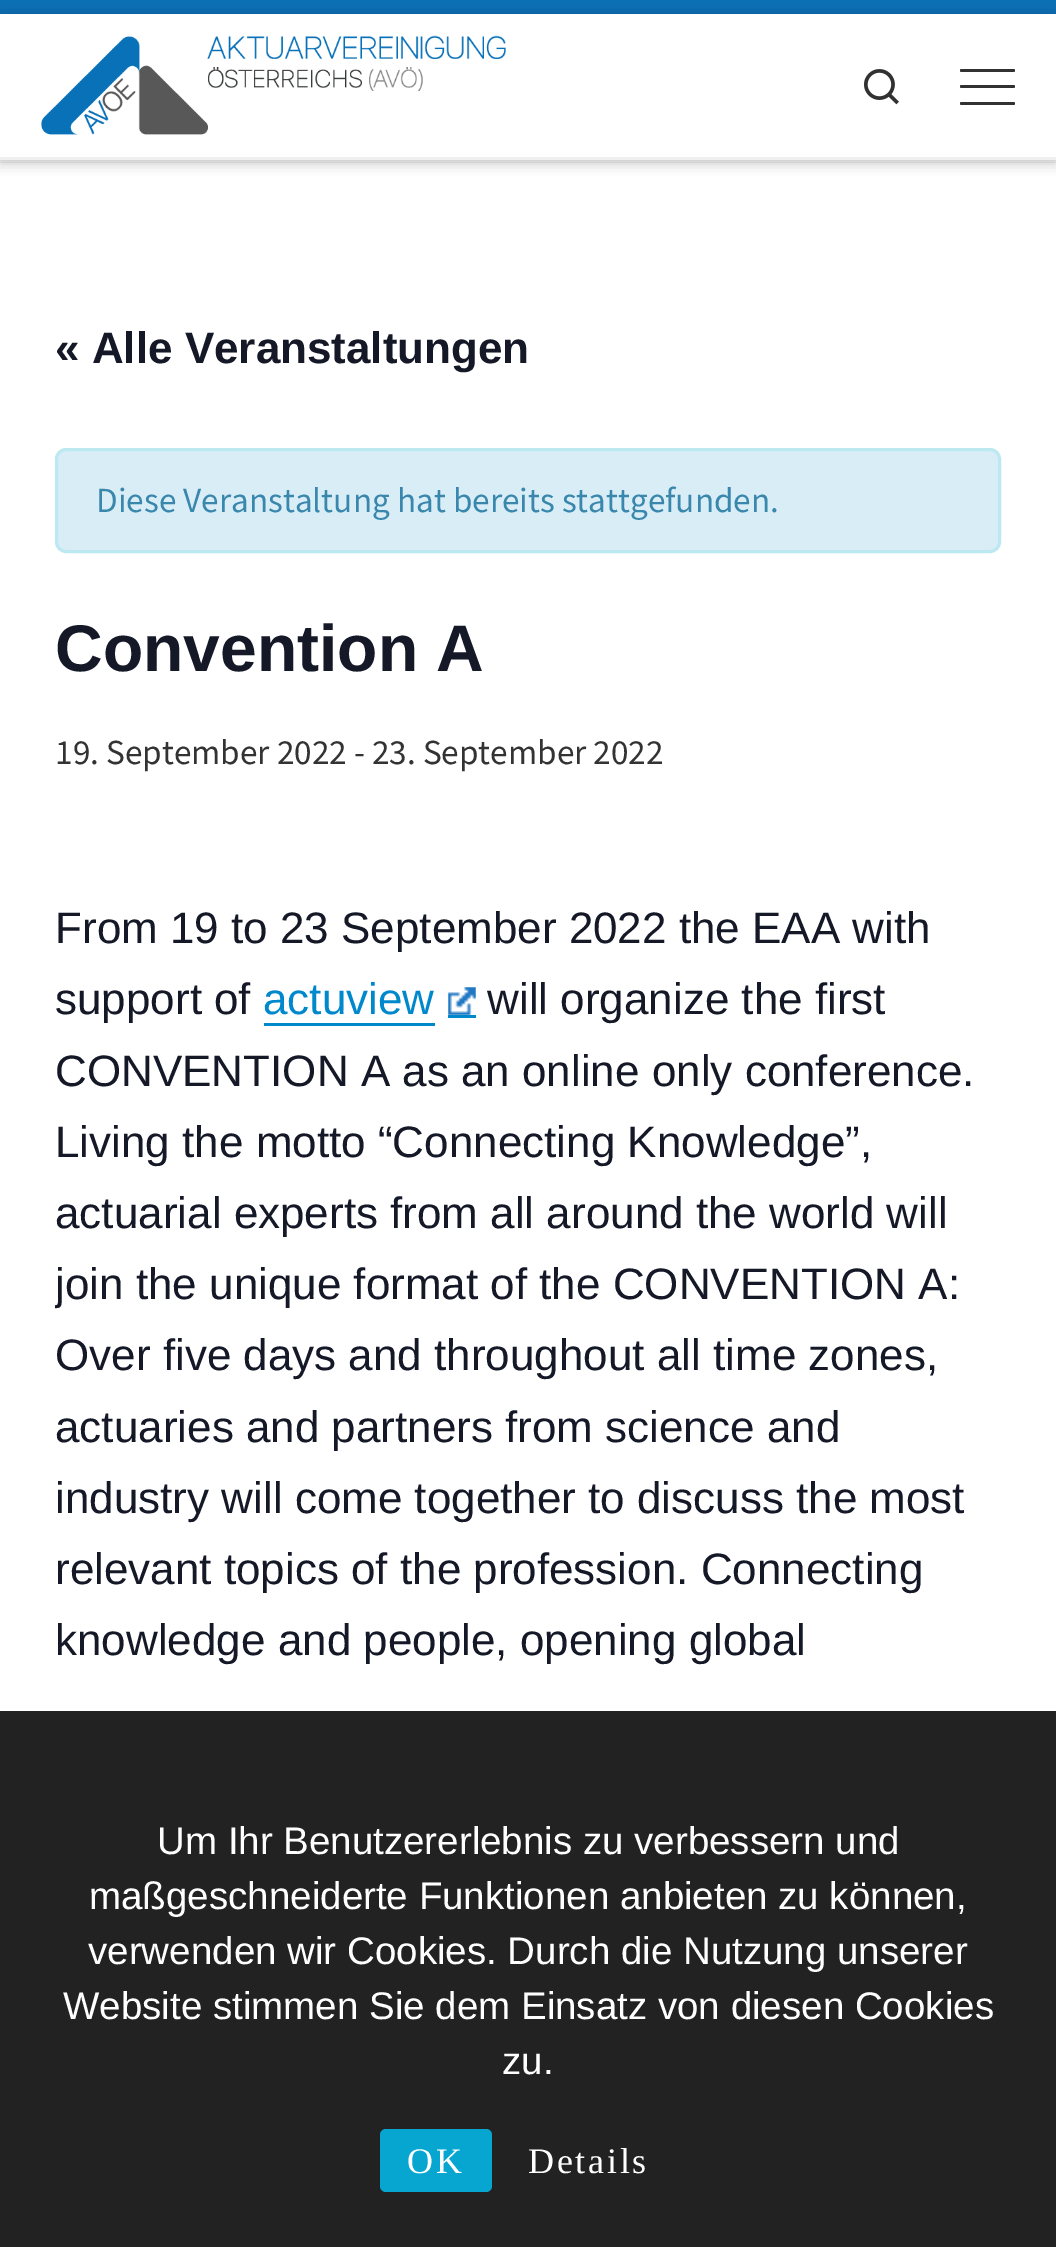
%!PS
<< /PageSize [1056 2247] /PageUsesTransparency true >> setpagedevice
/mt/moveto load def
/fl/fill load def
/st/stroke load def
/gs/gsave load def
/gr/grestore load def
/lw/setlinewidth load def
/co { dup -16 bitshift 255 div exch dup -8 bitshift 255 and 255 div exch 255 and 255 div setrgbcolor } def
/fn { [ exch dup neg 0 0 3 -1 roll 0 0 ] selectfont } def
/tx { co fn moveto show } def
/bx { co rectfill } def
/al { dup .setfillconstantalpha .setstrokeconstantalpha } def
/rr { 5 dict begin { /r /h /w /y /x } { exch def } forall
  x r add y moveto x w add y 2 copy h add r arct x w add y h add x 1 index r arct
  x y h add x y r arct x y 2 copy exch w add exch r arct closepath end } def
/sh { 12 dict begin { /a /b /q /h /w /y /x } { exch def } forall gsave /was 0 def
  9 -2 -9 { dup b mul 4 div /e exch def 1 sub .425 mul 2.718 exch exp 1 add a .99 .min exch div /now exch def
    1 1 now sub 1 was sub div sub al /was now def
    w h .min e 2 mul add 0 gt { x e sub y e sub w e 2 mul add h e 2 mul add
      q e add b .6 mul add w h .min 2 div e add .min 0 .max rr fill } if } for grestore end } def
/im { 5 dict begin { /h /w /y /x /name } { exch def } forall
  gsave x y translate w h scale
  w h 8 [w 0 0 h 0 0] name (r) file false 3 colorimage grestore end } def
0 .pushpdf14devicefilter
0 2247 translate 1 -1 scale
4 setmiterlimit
0 0 1056 2247 16#FFFFFF bx
16#666666 co
0 6 1056 162 0 3 .08 sh
0 0 1056 14 16#0C71B7 bx
0.09 al
0 162 1056 1 16#313131 bx
1 al
0 160 1056 2 16#EFEFEF bx
16#000000 co
0 14 1056 146 0 7 .2 sh
0 14 1056 143 16#FFFFFF bx
(media/1.raw) 41 35 465 100 im
(media/2.raw) 864 69 35 36 im
16#313131 co
960 69 55 3 1.5 rr fl
960 85 55 3 1.5 rr fl
960 102 55 3 1.5 rr fl
0 157 1056 3 16#F0F0F0 bx
16#D9EDF7 co
56.5 449.5 943 102 9.5 rr gs fl gr
16#BCE8F1 co
3 lw
st
264 1023 171 3 16#0088CC bx
448 1015 28 3 16#0088CC bx
(media/3.raw) 448 987 28 28 im
0 1711 1056 536 16#222222 bx
16#07A6D0 co
380 2129 112 63 6 rr fl
(« Alle Veranstaltungen) 55 363 /LiberationSans-Bold 44 16#141827 tx
(Diese Veranstaltung hat bereits stattgefunden.) 96 512 /SourceSansPro-Regular 35.25 16#3A87AD tx
(Convention A) 55 671 /LiberationSans-Bold 66 16#141827 tx
(19. September 2022 - 23. September 2022) 55 764 /SourceSansPro-Regular 35.25 16#333333 tx
(From 19 to 23 September 2022 the EAA with) 55 943 /LiberationSans-Regular 44 16#141827 tx
(support of) 55 1014 /LiberationSans-Regular 44 16#141827 tx
(actuview) 263 1014 /LiberationSans-Regular 44 16#0088CC tx
(will organize the first) 487 1014 /LiberationSans-Regular 44 16#141827 tx
(CONVENTION A as an online only conference.) 55 1086 /LiberationSans-Regular 44 16#141827 tx
(Living the motto “Connecting Knowledge”,) 55 1157 /LiberationSans-Regular 44 16#141827 tx
(actuarial experts from all around the world will) 55 1228 /LiberationSans-Regular 44 16#141827 tx
gs
55 839 946 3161 rectclip
(join the unique format of the CONVENTION A:) 55 1299 /LiberationSans-Regular 44 16#141827 tx
gr
(Over five days and throughout all time zones,) 55 1370 /LiberationSans-Regular 44 16#141827 tx
(actuaries and partners from science and) 55 1442 /LiberationSans-Regular 44 16#141827 tx
(industry will come together to discuss the most) 55 1513 /LiberationSans-Regular 44 16#141827 tx
(relevant topics of the profession. Connecting) 55 1584 /LiberationSans-Regular 44 16#141827 tx
(knowledge and people, opening global) 55 1655 /LiberationSans-Regular 44 16#141827 tx
(Um Ihr Benutzererlebnis zu verbessern und) 157 1854 /LiberationSans-Regular 38.5 16#FFFFFF tx
(maßgeschneiderte Funktionen anbieten zu können,) 89 1909 /LiberationSans-Regular 38.5 16#FFFFFF tx
(verwenden wir Cookies. Durch die Nutzung unserer) 88 1964 /LiberationSans-Regular 38.5 16#FFFFFF tx
(Website stimmen Sie dem Einsatz von diesen Cookies) 63 2019 /LiberationSans-Regular 38.5 16#FFFFFF tx
(zu.) 502 2074 /LiberationSans-Regular 38.5 16#FFFFFF tx
/LiberationSerif-Regular 36 fn
407 2173 mt 2.75 0 (OK) ashow
528 2173 mt 2.75 0 (Details) ashow
.poppdf14devicefilter showpage
